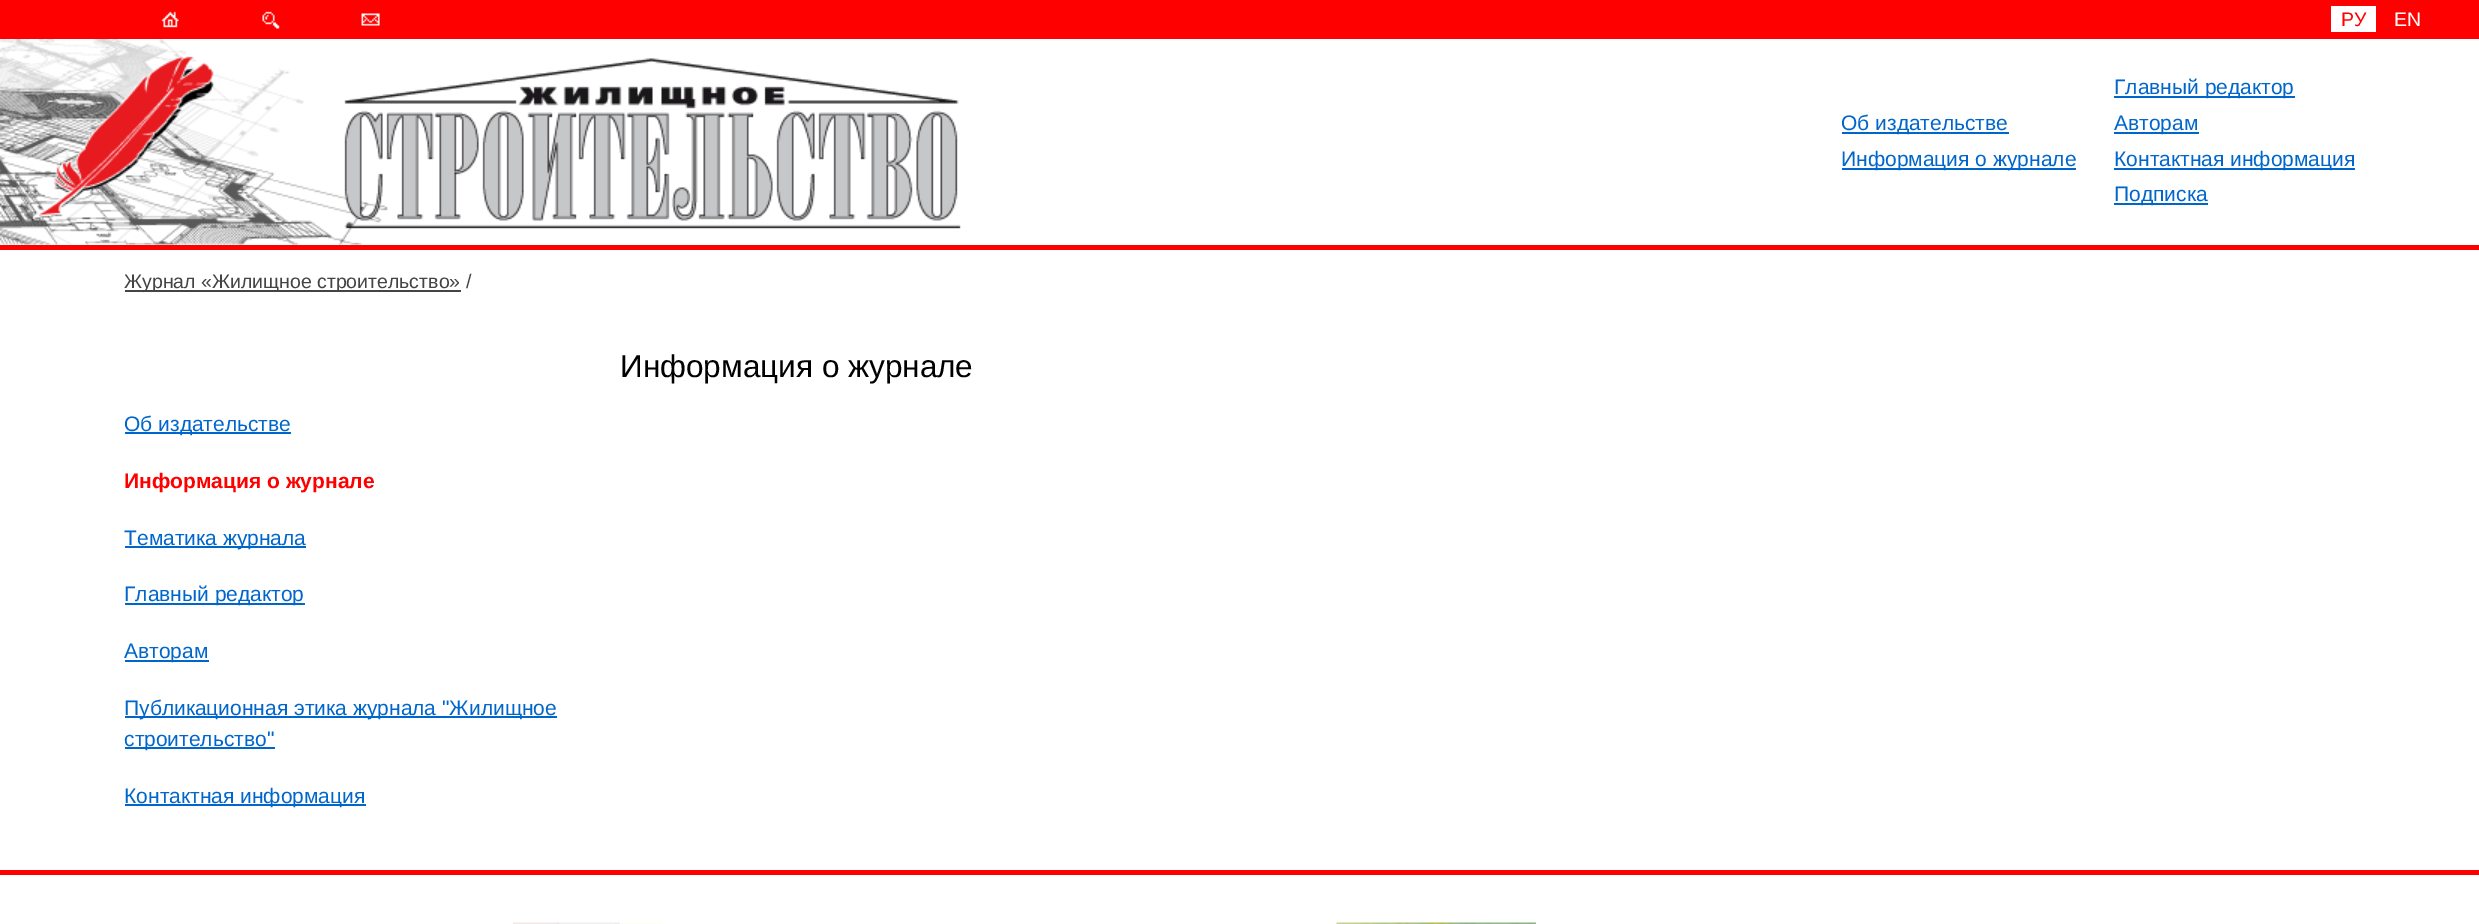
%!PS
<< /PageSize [2479 924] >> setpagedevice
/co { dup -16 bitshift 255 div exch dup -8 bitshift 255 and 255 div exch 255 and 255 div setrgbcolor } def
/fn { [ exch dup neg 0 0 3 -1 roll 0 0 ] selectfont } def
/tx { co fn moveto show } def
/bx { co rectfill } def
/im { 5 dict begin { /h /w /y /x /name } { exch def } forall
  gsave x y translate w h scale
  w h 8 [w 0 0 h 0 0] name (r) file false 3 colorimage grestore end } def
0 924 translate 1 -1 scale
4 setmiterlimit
0 0 2479 924 16#FFFFFF bx
0 0 2479 39 16#FF0000 bx
(media/1.raw) 161 11 18 17 im
(media/2.raw) 262 11 18 18 im
(media/3.raw) 361 13 19 13 im
2331 6 45 26 16#FFFFFF bx
(media/4.raw) 0 39 961 206 im
1842 132 167 2 16#0066CC bx
1842 168 234 2 16#0066CC bx
2114 96 181 2 16#0066CC bx
2114 132 85 2 16#0066CC bx
2114 168 241 2 16#0066CC bx
2114 203 94 2 16#0066CC bx
0 245 2479 5 16#FF0000 bx
125 290 336 2 16#444444 bx
125 432 166 2 16#0066CC bx
125 546 181 2 16#0066CC bx
125 603 180 2 16#0066CC bx
125 660 84 2 16#0066CC bx
125 716 432 2 16#0066CC bx
125 747 150 2 16#0066CC bx
125 804 241 2 16#0066CC bx
0 870 2479 5 16#FF0000 bx
(media/5.raw) 513 922 150 2 im
(media/6.raw) 1336 922 200 2 im
(РУ) 2341 26 /LiberationSans-Regular 19.5 16#FF0000 tx
(EN) 2394 26 /LiberationSans-Regular 19.5 16#FFFFFF tx
(Об издательстве) 1841 130 /LiberationSans-Regular 21 16#0066CC tx
(Информация о журнале) 1841 166 /LiberationSans-Regular 21 16#0066CC tx
(Главный редактор) 2114 94 /LiberationSans-Regular 21 16#0066CC tx
(Авторам) 2114 130 /LiberationSans-Regular 21 16#0066CC tx
(Контактная информация) 2114 166 /LiberationSans-Regular 21 16#0066CC tx
(Подписка) 2114 201 /LiberationSans-Regular 21 16#0066CC tx
(Журнал «Жилищное строительство» /) 124 288 /LiberationSans-Regular 19.5 16#444444 tx
(Информация о журнале) 620 377 /LiberationSans-Regular 31.5 16#000000 tx
(Об издательстве) 124 431 /LiberationSans-Regular 21 16#0066CC tx
(Информация о журнале) 124 488 /LiberationSans-Bold 21 16#FF0000 tx
(Тематика журнала) 124 545 /LiberationSans-Regular 21 16#0066CC tx
(Главный редактор) 124 601 /LiberationSans-Regular 21 16#0066CC tx
(Авторам) 124 658 /LiberationSans-Regular 21 16#0066CC tx
(Публикационная этика журнала "Жилищное) 124 715 /LiberationSans-Regular 21 16#0066CC tx
(строительство") 124 746 /LiberationSans-Regular 21 16#0066CC tx
(Контактная информация) 124 803 /LiberationSans-Regular 21 16#0066CC tx
showpage
